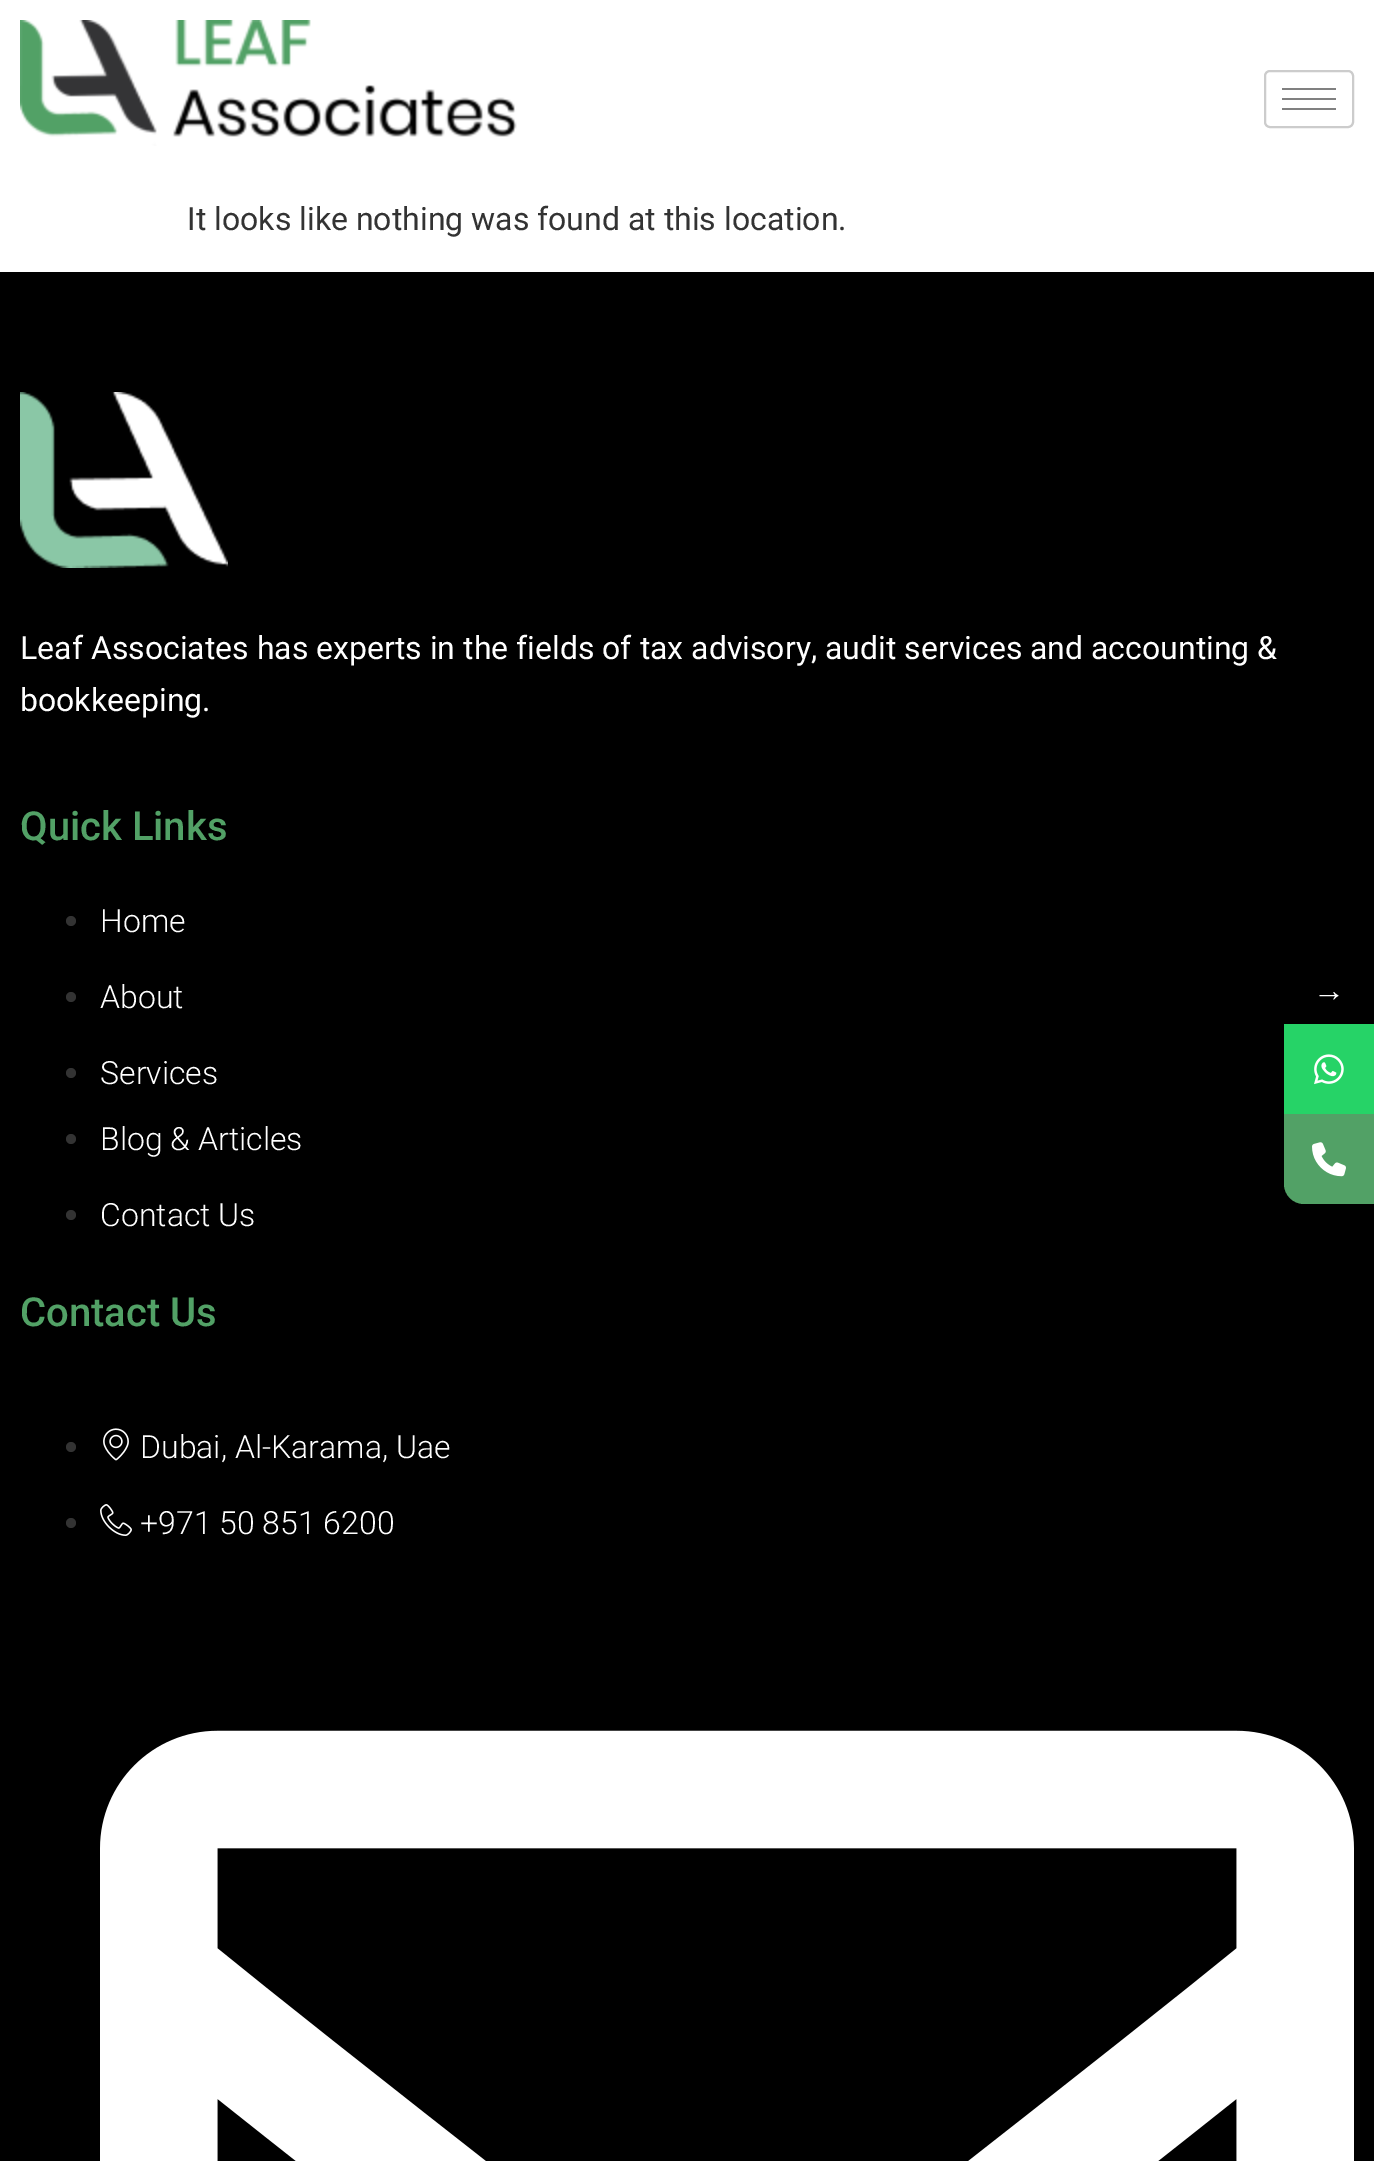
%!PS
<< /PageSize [1374 2161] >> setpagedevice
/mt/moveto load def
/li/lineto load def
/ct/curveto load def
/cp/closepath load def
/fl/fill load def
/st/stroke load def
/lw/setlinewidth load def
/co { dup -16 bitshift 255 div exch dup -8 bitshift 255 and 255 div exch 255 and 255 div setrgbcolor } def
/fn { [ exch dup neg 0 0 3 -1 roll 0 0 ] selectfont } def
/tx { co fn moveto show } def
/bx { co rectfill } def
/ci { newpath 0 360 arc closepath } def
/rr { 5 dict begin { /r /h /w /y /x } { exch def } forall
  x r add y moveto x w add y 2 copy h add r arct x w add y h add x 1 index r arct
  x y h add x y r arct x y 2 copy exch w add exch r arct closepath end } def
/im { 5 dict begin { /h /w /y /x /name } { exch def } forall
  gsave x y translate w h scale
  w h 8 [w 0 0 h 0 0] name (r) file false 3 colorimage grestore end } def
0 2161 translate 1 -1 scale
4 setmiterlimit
0 0 1374 2161 16#FFFFFF bx
(media/1.raw) 20 20 497 126 im
16#CCCCCC co
2 lw
1265 71 88 56 5 rr st
1282 88 54 2 16#808080 bx
1282 98 54 2 16#808080 bx
1282 108 54 2 16#808080 bx
0 272 1374 1889 16#000000 bx
(media/2.raw) 20 392 208 176 im
16#333333 co
71 921 5 ci fl
71 997 5 ci fl
71 1073 5 ci fl
71 1139 5 ci fl
71 1215 5 ci fl
71 1447 5 ci fl
(media/3.raw) 103 1428 26 33 im
71 1523 5 ci fl
(media/4.raw) 100 1504 32 32 im
(media/5.raw) 100 1730 1254 431 im
1284 1024 90 90 16#26D367 bx
(media/6.raw) 1314 1054 30 31 im
16#52A166 co
1284 1114 mt 1374 1114 li 1374 1204 li 1304 1204 li 1293 1204 1284 1195 1284 1184 ct cp fl
(media/7.raw) 1312 1142 34 35 im
(It looks like nothing was found at this location.) 187 230 /Roboto-Regular 32 16#333333 tx
(Leaf Associates has experts in the fields of tax advisory, audit services and accounting &) 20 659 /Roboto-Regular 32 16#FFFFFF tx
(bookkeeping.) 20 711 /Roboto-Regular 32 16#FFFFFF tx
(Quick Links) 20 840 /Roboto-Medium 40 16#52A166 tx
(Home) 100 932 /Roboto-Light 32 16#FFFFFF tx
(About) 100 1008 /Roboto-Light 32 16#FFFFFF tx
(Services) 100 1084 /Roboto-Light 32 16#FFFFFF tx
(Blog & Articles) 100 1150 /Roboto-Light 32 16#FFFFFF tx
(Contact Us) 100 1226 /Roboto-Light 32 16#FFFFFF tx
(Contact Us) 20 1326 /Roboto-Medium 40 16#52A166 tx
(Dubai, Al-Karama, Uae) 140 1458 /Roboto-Light 32 16#FFFFFF tx
(+971 50 851 6200) 140 1534 /Roboto-Light 32 16#FFFFFF tx
(→) 1313 1001 /LiberationSerif-Regular 32 16#FFFFFF tx
showpage
